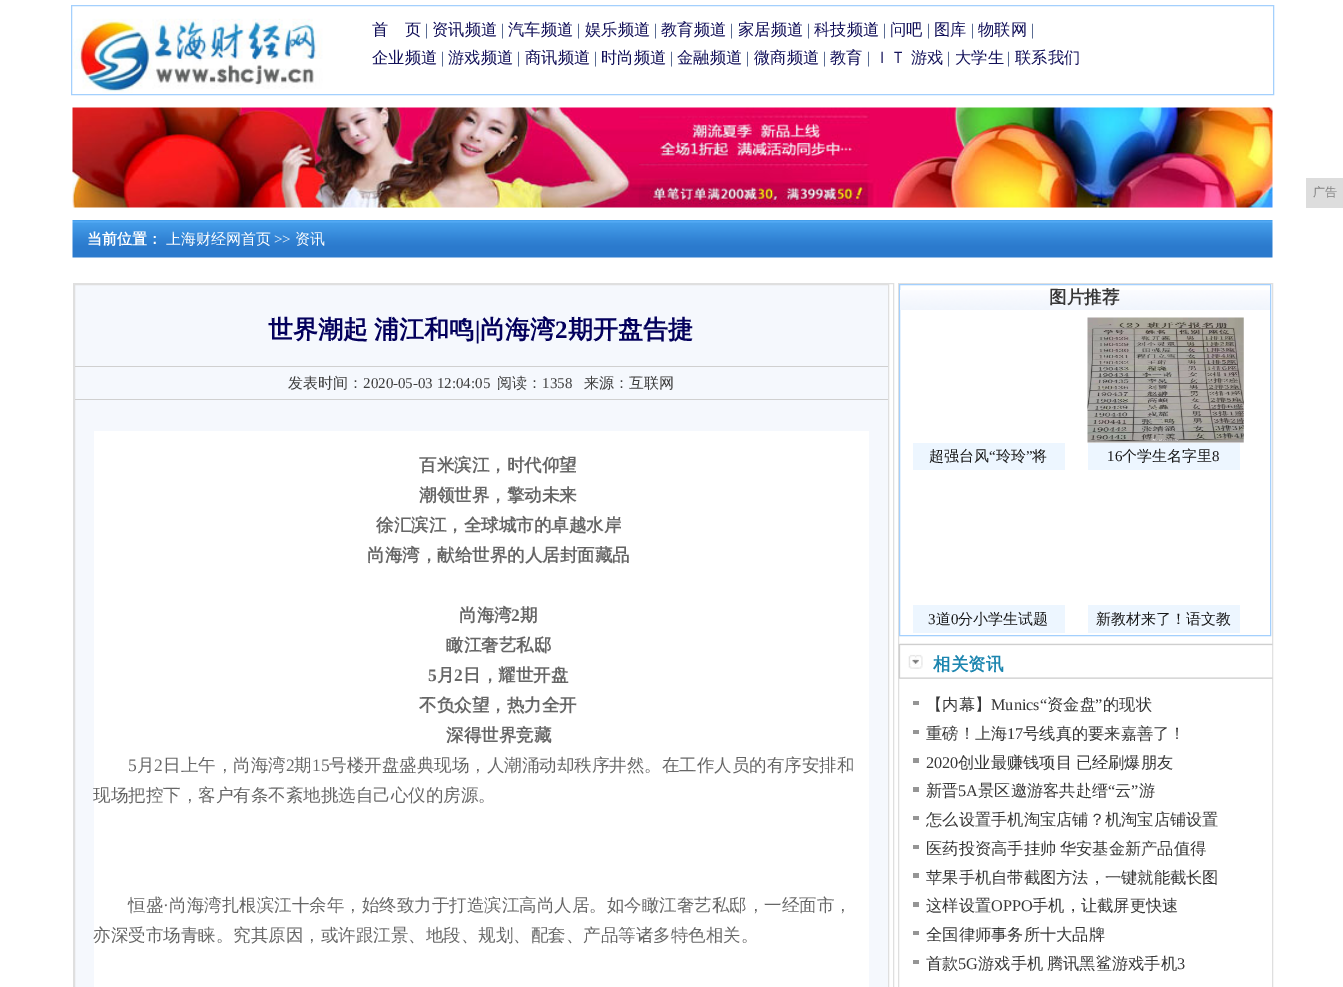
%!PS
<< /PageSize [1343 987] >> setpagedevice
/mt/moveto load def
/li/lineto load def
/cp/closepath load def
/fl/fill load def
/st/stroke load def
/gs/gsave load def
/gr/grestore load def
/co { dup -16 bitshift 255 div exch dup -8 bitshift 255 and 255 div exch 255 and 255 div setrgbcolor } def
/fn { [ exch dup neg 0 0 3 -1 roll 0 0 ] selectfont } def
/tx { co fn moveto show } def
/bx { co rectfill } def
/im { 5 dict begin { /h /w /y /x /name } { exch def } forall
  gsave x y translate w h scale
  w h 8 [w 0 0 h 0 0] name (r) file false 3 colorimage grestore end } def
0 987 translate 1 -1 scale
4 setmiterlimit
0 0 1343 987 16#FFFFFF bx
16#A4D0FD co
71.5 5.5 1202 89 rectstroke
(media/1.raw) 73 18 250 75 im
(media/2.raw) 72 107 1201 101 im
1306 178 37 30 16#DDDDDD bx
(media/3.raw) 72 220 1201 38 im
16#DFDFDF co
73.5 283.5 820 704 rectstroke
16#F5F8FD co
74.5 284.5 mt 888.5 284.5 li 888.5 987.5 li 74.5 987.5 li cp gs fl gr
16#DFDFDF co
st
75 366 813 1 16#D0D0D0 bx
75 399 813 1 16#D0D0D0 bx
94 431 775 556 16#FFFFFF bx
16#DFDFDF co
898.5 283.5 374 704 rectstroke
16#A4D0FD co
899.5 284.5 371 351 rectstroke
(media/4.raw) 900 290 370 20 im
913 443 152 27 16#EDF6FF bx
(media/5.raw) 1087 317 157 126 im
1088 443 152 27 16#EDF6FF bx
913 605 152 28 16#EDF6FF bx
1088 605 152 28 16#EDF6FF bx
(media/6.raw) 898 643 375 36 im
913 701 6 4 16#959595 bx
913 730 6 4 16#959595 bx
913 758 6 5 16#959595 bx
913 787 6 5 16#959595 bx
913 816 6 4 16#959595 bx
913 845 6 4 16#959595 bx
913 873 6 5 16#959595 bx
913 902 6 5 16#959595 bx
913 931 6 4 16#959595 bx
913 960 6 4 16#959595 bx
(首　页) 372 35 /WenQuanYiZenHei-Medium 16.25 16#13115A tx
(|) 425 35 /LiberationSerif-Regular 16.25 16#1F376D tx
(资讯频道) 432 35 /WenQuanYiZenHei-Medium 16.25 16#13115A tx
(|) 501 35 /LiberationSerif-Regular 16.25 16#1F376D tx
(汽车频道) 508 35 /WenQuanYiZenHei-Medium 16.25 16#13115A tx
(|) 577 35 /LiberationSerif-Regular 16.25 16#1F376D tx
(娱乐频道) 585 35 /WenQuanYiZenHei-Medium 16.25 16#13115A tx
(|) 654 35 /LiberationSerif-Regular 16.25 16#1F376D tx
(教育频道) 661 35 /WenQuanYiZenHei-Medium 16.25 16#13115A tx
(|) 730 35 /LiberationSerif-Regular 16.25 16#1F376D tx
(家居频道) 738 35 /WenQuanYiZenHei-Medium 16.25 16#13115A tx
(|) 807 35 /LiberationSerif-Regular 16.25 16#1F376D tx
(科技频道) 814 35 /WenQuanYiZenHei-Medium 16.25 16#13115A tx
(|) 883 35 /LiberationSerif-Regular 16.25 16#1F376D tx
(问吧) 890 35 /WenQuanYiZenHei-Medium 16.25 16#13115A tx
(|) 927 35 /LiberationSerif-Regular 16.25 16#1F376D tx
(图库) 934 35 /WenQuanYiZenHei-Medium 16.25 16#13115A tx
(|) 971 35 /LiberationSerif-Regular 16.25 16#1F376D tx
(物联网) 978 35 /WenQuanYiZenHei-Medium 16.25 16#13115A tx
(|) 1031 35 /LiberationSerif-Regular 16.25 16#1F376D tx
(企业频道) 372 63 /WenQuanYiZenHei-Medium 16.25 16#13115A tx
(|) 441 63 /LiberationSerif-Regular 16.25 16#1F376D tx
(游戏频道) 448 63 /WenQuanYiZenHei-Medium 16.25 16#13115A tx
(|) 517 63 /LiberationSerif-Regular 16.25 16#1F376D tx
(商讯频道) 525 63 /WenQuanYiZenHei-Medium 16.25 16#13115A tx
(|) 594 63 /LiberationSerif-Regular 16.25 16#1F376D tx
(时尚频道) 601 63 /WenQuanYiZenHei-Medium 16.25 16#13115A tx
(|) 670 63 /LiberationSerif-Regular 16.25 16#1F376D tx
(金融频道) 677 63 /WenQuanYiZenHei-Medium 16.25 16#13115A tx
(|) 746 63 /LiberationSerif-Regular 16.25 16#1F376D tx
(微商频道) 754 63 /WenQuanYiZenHei-Medium 16.25 16#13115A tx
(|) 823 63 /LiberationSerif-Regular 16.25 16#1F376D tx
(教育) 830 63 /WenQuanYiZenHei-Medium 16.25 16#13115A tx
(|) 867 63 /LiberationSerif-Regular 16.25 16#1F376D tx
(ＩＴ) 874 63 /WenQuanYiZenHei-Medium 16.25 16#13115A tx
(游戏) 911 63 /WenQuanYiZenHei-Medium 16.25 16#13115A tx
(|) 947 63 /LiberationSerif-Regular 16.25 16#1F376D tx
(大学生) 955 63 /WenQuanYiZenHei-Medium 16.25 16#13115A tx
(|) 1007 63 /LiberationSerif-Regular 16.25 16#1F376D tx
(联系我们) 1015 63 /WenQuanYiZenHei-Medium 16.25 16#13115A tx
(广告) 1313 196 /WenQuanYiZenHei-Medium 12 16#808080 tx
(当前位置：) 87 244 /WenQuanYiZenHei-Bold 15 16#FFFFFF tx
(上海财经网首页) 166 244 /WenQuanYiZenHei-Medium 15 16#FFFFFF tx
(>>) 274 244 /LiberationSerif-Regular 15 16#FFFFFF tx
(资讯) 295 244 /WenQuanYiZenHei-Medium 15 16#FFFFFF tx
/WenQuanYiZenHei-Bold 25 fn
16#03005C co
268 338 mt -1 0 32 (世界潮起 浦江和鸣) widthshow
(|) 475 338 /LiberationSerif-Bold 25 16#03005C tx
(尚海湾) 480 338 /WenQuanYiZenHei-Bold 25 16#03005C tx
(2) 555 338 /LiberationSerif-Bold 25 16#03005C tx
(期开盘告捷) 568 338 /WenQuanYiZenHei-Bold 25 16#03005C tx
(发表时间：) 288 388 /WenQuanYiZenHei-Medium 15 16#3E3E3E tx
(2020-05-03 12:04:05) 363 388 /LiberationSerif-Regular 15 16#3E3E3E tx
(阅读：) 497 388 /WenQuanYiZenHei-Medium 15 16#3E3E3E tx
(1358) 542 388 /LiberationSerif-Regular 15 16#3E3E3E tx
(来源：互联网) 584 388 /WenQuanYiZenHei-Medium 15 16#3E3E3E tx
(百米滨江，时代仰望) 419 471 /WenQuanYiZenHei-Bold 17.5 16#666666 tx
(潮领世界，擎动未来) 419 501 /WenQuanYiZenHei-Bold 17.5 16#666666 tx
(徐汇滨江，全球城市的卓越水岸) 376 531 /WenQuanYiZenHei-Bold 17.5 16#666666 tx
(尚海湾，献给世界的人居封面藏品) 367 561 /WenQuanYiZenHei-Bold 17.5 16#666666 tx
(尚海湾) 459 621 /WenQuanYiZenHei-Bold 17.5 16#666666 tx
(2) 511 621 /LiberationSerif-Bold 17.5 16#666666 tx
(期) 520 621 /WenQuanYiZenHei-Bold 17.5 16#666666 tx
(瞰江奢艺私邸) 446 651 /WenQuanYiZenHei-Bold 17.5 16#666666 tx
(5) 428 681 /LiberationSerif-Bold 17.5 16#666666 tx
(月) 437 681 /WenQuanYiZenHei-Bold 17.5 16#666666 tx
(2) 454 681 /LiberationSerif-Bold 17.5 16#666666 tx
(日，耀世开盘) 463 681 /WenQuanYiZenHei-Bold 17.5 16#666666 tx
(不负众望，热力全开) 419 711 /WenQuanYiZenHei-Bold 17.5 16#666666 tx
(深得世界竞藏) 446 741 /WenQuanYiZenHei-Bold 17.5 16#666666 tx
(5) 128 771 /LiberationSerif-Regular 17.5 16#666666 tx
(月) 137 771 /WenQuanYiZenHei-Medium 17.5 16#666666 tx
(2) 154 771 /LiberationSerif-Regular 17.5 16#666666 tx
(日上午，尚海湾) 163 771 /WenQuanYiZenHei-Medium 17.5 16#666666 tx
(2) 286 771 /LiberationSerif-Regular 17.5 16#666666 tx
(期) 294 771 /WenQuanYiZenHei-Medium 17.5 16#666666 tx
(15) 312 771 /LiberationSerif-Regular 17.5 16#666666 tx
(号楼开盘盛典现场，人潮涌动却秩序井然。在工作人员的有序安排和) 329 771 /WenQuanYiZenHei-Medium 17.5 16#666666 tx
(现场把控下，客户有条不紊地挑选自己心仪的房源。) 93 801 /WenQuanYiZenHei-Medium 17.5 16#666666 tx
(恒盛) 128 911 /WenQuanYiZenHei-Medium 17.5 16#666666 tx
(·) 163 911 /LiberationSerif-Regular 17.5 16#666666 tx
(尚海湾扎根滨江十余年，始终致力于打造滨江高尚人居。如今瞰江奢艺私邸，一经面市，) 169 911 /WenQuanYiZenHei-Medium 17.5 16#666666 tx
(亦深受市场青睐。究其原因，或许跟江景、地段、规划、配套、产品等诸多特色相关。) 93 941 /WenQuanYiZenHei-Medium 17.5 16#666666 tx
(图片推荐) 1049 303 /WenQuanYiZenHei-Bold 17.5 16#373737 tx
(超强台风) 929 461 /WenQuanYiZenHei-Medium 15 16#181818 tx
(“) 989 461 /LiberationSerif-Regular 15 16#181818 tx
(玲玲) 996 461 /WenQuanYiZenHei-Medium 15 16#181818 tx
(”) 1026 461 /LiberationSerif-Regular 15 16#181818 tx
(将) 1032 461 /WenQuanYiZenHei-Medium 15 16#181818 tx
(16) 1107 461 /LiberationSerif-Regular 15 16#181818 tx
(个学生名字里) 1122 461 /WenQuanYiZenHei-Medium 15 16#181818 tx
(8) 1212 461 /LiberationSerif-Regular 15 16#181818 tx
(3) 928 624 /LiberationSerif-Regular 15 16#181818 tx
(道) 936 624 /WenQuanYiZenHei-Medium 15 16#181818 tx
(0) 951 624 /LiberationSerif-Regular 15 16#181818 tx
(分小学生试题) 958 624 /WenQuanYiZenHei-Medium 15 16#181818 tx
(新教材来了！语文教) 1096 624 /WenQuanYiZenHei-Medium 15 16#181818 tx
(相关资讯) 933 670 /WenQuanYiZenHei-Bold 17.5 16#1B85AF tx
(【内幕】) 926 710 /WenQuanYiZenHei-Medium 16.25 16#373737 tx
(Munics“) 991 710 /LiberationSerif-Regular 16.25 16#373737 tx
(资金盘) 1047 710 /WenQuanYiZenHei-Medium 16.25 16#373737 tx
(”) 1095 710 /LiberationSerif-Regular 16.25 16#373737 tx
(的现状) 1103 710 /WenQuanYiZenHei-Medium 16.25 16#373737 tx
(重磅！上海) 926 739 /WenQuanYiZenHei-Medium 16.25 16#373737 tx
(17) 1007 739 /LiberationSerif-Regular 16.25 16#373737 tx
(号线真的要来嘉善了！) 1023 739 /WenQuanYiZenHei-Medium 16.25 16#373737 tx
(2020) 926 768 /LiberationSerif-Regular 16.25 16#373737 tx
/WenQuanYiZenHei-Medium 16.25 fn
958 768 mt -1 0 32 (创业最赚钱项目 已经刷爆朋友) widthshow
(新晋) 926 796 /WenQuanYiZenHei-Medium 16.25 16#373737 tx
(5A) 958 796 /LiberationSerif-Regular 16.25 16#373737 tx
(景区邀游客共赴缙) 978 796 /WenQuanYiZenHei-Medium 16.25 16#373737 tx
(“) 1108 796 /LiberationSerif-Regular 16.25 16#373737 tx
(云) 1115 796 /WenQuanYiZenHei-Medium 16.25 16#373737 tx
(”) 1131 796 /LiberationSerif-Regular 16.25 16#373737 tx
(游) 1139 796 /WenQuanYiZenHei-Medium 16.25 16#373737 tx
(怎么设置手机淘宝店铺？机淘宝店铺设置) 926 825 /WenQuanYiZenHei-Medium 16.25 16#373737 tx
926 854 mt -1 0 32 (医药投资高手挂帅 华安基金新产品值得) widthshow
(苹果手机自带截图方法，一键就能截长图) 926 883 /WenQuanYiZenHei-Medium 16.25 16#373737 tx
(这样设置) 926 911 /WenQuanYiZenHei-Medium 16.25 16#373737 tx
(OPPO) 991 911 /LiberationSerif-Regular 16.25 16#373737 tx
(手机，让截屏更快速) 1032 911 /WenQuanYiZenHei-Medium 16.25 16#373737 tx
(全国律师事务所十大品牌) 926 940 /WenQuanYiZenHei-Medium 16.25 16#373737 tx
(首款) 926 969 /WenQuanYiZenHei-Medium 16.25 16#373737 tx
(5G) 958 969 /LiberationSerif-Regular 16.25 16#373737 tx
/WenQuanYiZenHei-Medium 16.25 fn
978 969 mt -1 0 32 (游戏手机 腾讯黑鲨游戏手机) widthshow
(3) 1177 969 /LiberationSerif-Regular 16.25 16#373737 tx
showpage
